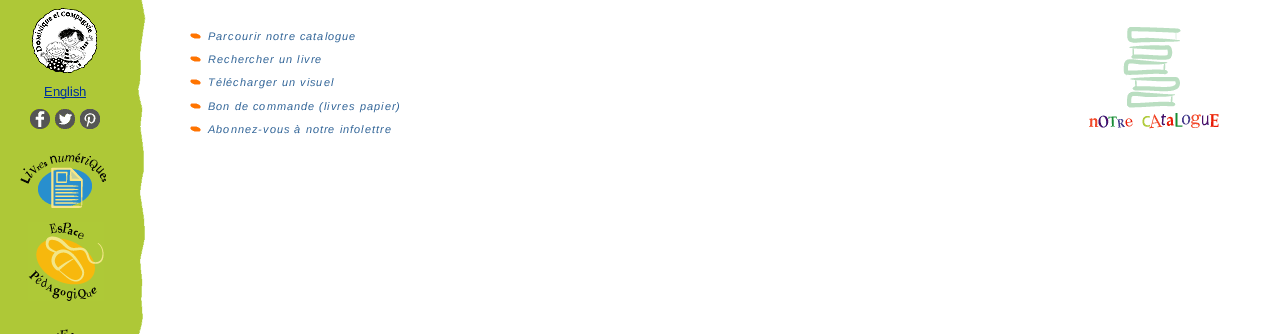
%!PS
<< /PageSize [1266 334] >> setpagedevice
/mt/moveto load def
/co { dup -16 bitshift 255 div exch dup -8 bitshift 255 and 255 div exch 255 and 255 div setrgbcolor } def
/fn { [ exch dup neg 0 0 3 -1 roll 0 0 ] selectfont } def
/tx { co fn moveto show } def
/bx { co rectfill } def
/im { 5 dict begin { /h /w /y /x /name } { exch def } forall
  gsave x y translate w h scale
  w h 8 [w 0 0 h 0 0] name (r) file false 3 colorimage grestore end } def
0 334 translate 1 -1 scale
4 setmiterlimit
0 0 1266 334 16#FFFFFF bx
(media/1.raw) 0 0 146 334 im
(media/2.raw) 32 8 65 65 im
44 97 42 1 16#003399 bx
(media/3.raw) 30 109 20 20 im
(media/4.raw) 55 109 20 20 im
(media/5.raw) 80 109 20 20 im
(media/6.raw) 20 153 86 55 im
(media/7.raw) 28 222 76 79 im
(media/8.raw) 57 329 17 5 im
(media/9.raw) 190 33 11 6 im
(media/9.raw) 190 56 11 6 im
(media/9.raw) 190 79 11 6 im
(media/9.raw) 190 103 11 6 im
(media/9.raw) 190 126 11 6 im
(media/10.raw) 1089 27 130 102 im
(English) 44 96 /LiberationSans-Regular 13 16#003399 tx
/LiberationSans-Italic 11 fn
16#336699 co
208 40 mt 1 0 (Parcourir notre catalogue) ashow
208 63 mt 1 0 (Rechercher un livre) ashow
208 86 mt 1 0 (Télécharger un visuel) ashow
208 110 mt 1 0 (Bon de commande \(livres papier\)) ashow
208 133 mt 1 0 (Abonnez-vous à notre infolettre) ashow
showpage
